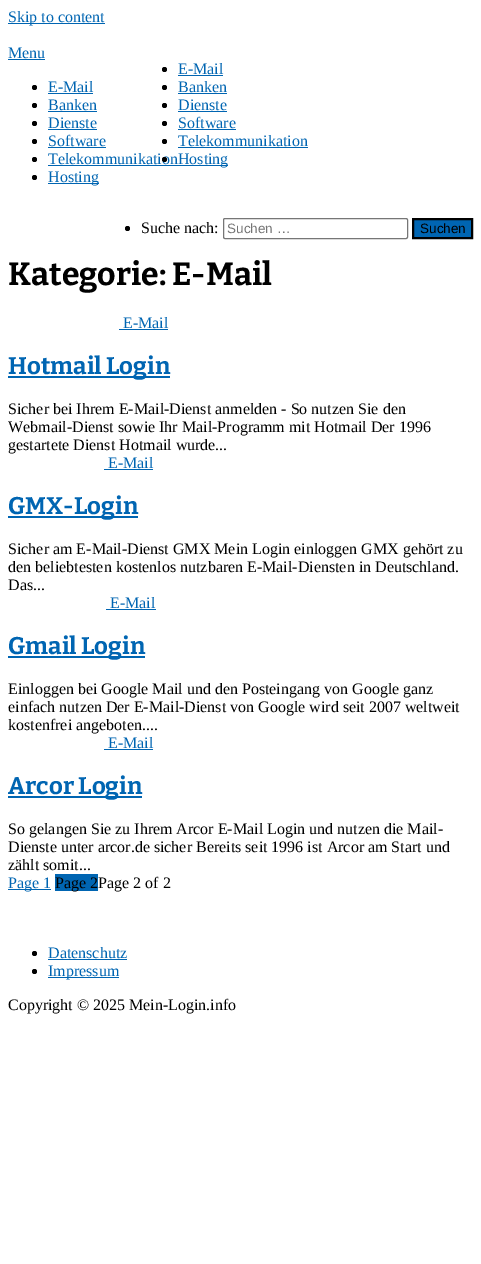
%!PS
<< /PageSize [481 1264] >> setpagedevice
/mt/moveto load def
/li/lineto load def
/cp/closepath load def
/fl/fill load def
/st/stroke load def
/gs/gsave load def
/gr/grestore load def
/lw/setlinewidth load def
/co { dup -16 bitshift 255 div exch dup -8 bitshift 255 and 255 div exch 255 and 255 div setrgbcolor } def
/fn { [ exch dup neg 0 0 3 -1 roll 0 0 ] selectfont } def
/tx { co fn moveto show } def
/bx { co rectfill } def
/ci { newpath 0 360 arc closepath } def
/rr { 5 dict begin { /r /h /w /y /x } { exch def } forall
  x r add y moveto x w add y 2 copy h add r arct x w add y h add x 1 index r arct
  x y h add x y r arct x y 2 copy exch w add exch r arct closepath end } def
0 1264 translate 1 -1 scale
4 setmiterlimit
0 0 481 1264 16#FFFFFF bx
8 23 97 1 16#0065B2 bx
8 59 37 1 16#0065B2 bx
16#000000 co
34.5 87.5 2.5 ci fl
48 93 45 1 16#0065B2 bx
16#000000 co
34.5 105.5 2.5 ci fl
48 111 49 1 16#0065B2 bx
16#000000 co
34.5 123.5 2.5 ci fl
48 129 49 1 16#0065B2 bx
16#000000 co
34.5 141.5 2.5 ci fl
48 147 58 1 16#0065B2 bx
16#000000 co
34.5 159.5 2.5 ci fl
48 165 180 1 16#0065B2 bx
16#000000 co
34.5 177.5 2.5 ci fl
48 183 51 1 16#0065B2 bx
16#000000 co
127.5 228.5 2.5 ci fl
16#767676 co
223.5 218.5 184 20 1.5 rr st
16#0065B2 co
413 219 mt 472 219 li 472 238 li 413 238 li cp gs fl gr
16#000000 co
2 lw
st
164.5 69.5 2.5 ci fl
178 75 45 1 16#0065B2 bx
16#000000 co
164.5 87.5 2.5 ci fl
178 93 49 1 16#0065B2 bx
16#000000 co
164.5 105.5 2.5 ci fl
178 111 49 1 16#0065B2 bx
16#000000 co
164.5 123.5 2.5 ci fl
178 129 58 1 16#0065B2 bx
16#000000 co
164.5 141.5 2.5 ci fl
178 147 130 1 16#0065B2 bx
119 329 49 1 16#0065B2 bx
8 376 162 2 16#0065B2 bx
104 469 49 1 16#0065B2 bx
8 516 130 2 16#0065B2 bx
106 609 50 1 16#0065B2 bx
8 656 137 2 16#0065B2 bx
104 749 49 1 16#0065B2 bx
8 796 134 2 16#0065B2 bx
8 889 43 1 16#0065B2 bx
55 874 43 17 16#0065B2 bx
16#000000 co
34.5 953.5 2.5 ci fl
48 959 79 1 16#0065B2 bx
16#000000 co
34.5 971.5 2.5 ci fl
48 977 71 1 16#0065B2 bx
(Skip to content) 8 22 /LiberationSerif-Regular 16 16#0065B2 tx
(Menu) 8 58 /LiberationSerif-Regular 16 16#0065B2 tx
(E-Mail) 48 92 /LiberationSerif-Regular 16 16#0065B2 tx
(Banken) 48 110 /LiberationSerif-Regular 16 16#0065B2 tx
(Dienste) 48 128 /LiberationSerif-Regular 16 16#0065B2 tx
(Software) 48 146 /LiberationSerif-Regular 16 16#0065B2 tx
(TelekommunikationHosting) 48 164 /LiberationSerif-Regular 16 16#0065B2 tx
(Hosting) 48 182 /LiberationSerif-Regular 16 16#0065B2 tx
(Suche nach:) 141 233 /LiberationSerif-Regular 16 16#000000 tx
(Suchen …) 227 233 /LiberationSans-Regular 13.5 16#757575 tx
(Suchen) 420 233 /LiberationSans-Regular 13.5 16#000000 tx
(E-Mail) 178 74 /LiberationSerif-Regular 16 16#0065B2 tx
(Banken) 178 92 /LiberationSerif-Regular 16 16#0065B2 tx
(Dienste) 178 110 /LiberationSerif-Regular 16 16#0065B2 tx
(Software) 178 128 /LiberationSerif-Regular 16 16#0065B2 tx
(Telekommunikation) 178 146 /LiberationSerif-Regular 16 16#0065B2 tx
16#000000 co
164.5 159.5 2.5 ci fl
(Kategorie: E-Mail) 8 285 /Bitter-Bold 32 16#000000 tx
(E-Mail) 123 328 /LiberationSerif-Regular 16 16#0065B2 tx
(Hotmail Login) 8 374 /Bitter-Bold 24 16#0065B2 tx
(Sicher bei Ihrem E-Mail-Dienst anmelden - So nutzen Sie den) 8 414 /LiberationSerif-Regular 16 16#000000 tx
(Webmail-Dienst sowie Ihr Mail-Programm mit Hotmail Der 1996) 8 432 /LiberationSerif-Regular 16 16#000000 tx
(gestartete Dienst Hotmail wurde...) 8 450 /LiberationSerif-Regular 16 16#000000 tx
(E-Mail) 108 468 /LiberationSerif-Regular 16 16#0065B2 tx
(GMX-Login) 8 514 /Bitter-Bold 24 16#0065B2 tx
(Sicher am E-Mail-Dienst GMX Mein Login einloggen GMX gehört zu) 8 554 /LiberationSerif-Regular 16 16#000000 tx
(den beliebtesten kostenlos nutzbaren E-Mail-Diensten in Deutschland.) 8 572 /LiberationSerif-Regular 16 16#000000 tx
(Das...) 8 590 /LiberationSerif-Regular 16 16#000000 tx
(E-Mail) 110 608 /LiberationSerif-Regular 16 16#0065B2 tx
(Gmail Login) 8 654 /Bitter-Bold 24 16#0065B2 tx
(Einloggen bei Google Mail und den Posteingang von Google ganz) 8 694 /LiberationSerif-Regular 16 16#000000 tx
(einfach nutzen Der E-Mail-Dienst von Google wird seit 2007 weltweit) 8 712 /LiberationSerif-Regular 16 16#000000 tx
(kostenfrei angeboten....) 8 730 /LiberationSerif-Regular 16 16#000000 tx
(E-Mail) 108 748 /LiberationSerif-Regular 16 16#0065B2 tx
(Arcor Login) 8 794 /Bitter-Bold 24 16#0065B2 tx
(So gelangen Sie zu Ihrem Arcor E-Mail Login und nutzen die Mail-) 8 834 /LiberationSerif-Regular 16 16#000000 tx
(Dienste unter arcor.de sicher Bereits seit 1996 ist Arcor am Start und) 8 852 /LiberationSerif-Regular 16 16#000000 tx
(zählt somit...) 8 870 /LiberationSerif-Regular 16 16#000000 tx
(Page 1) 8 888 /LiberationSerif-Regular 16 16#0065B2 tx
(Page 2Page 2 of 2) 55 888 /LiberationSerif-Regular 16 16#000000 tx
(Datenschutz) 48 958 /LiberationSerif-Regular 16 16#0065B2 tx
(Impressum) 48 976 /LiberationSerif-Regular 16 16#0065B2 tx
(Copyright © 2025 Mein-Login.info) 8 1010 /LiberationSerif-Regular 16 16#000000 tx
showpage
